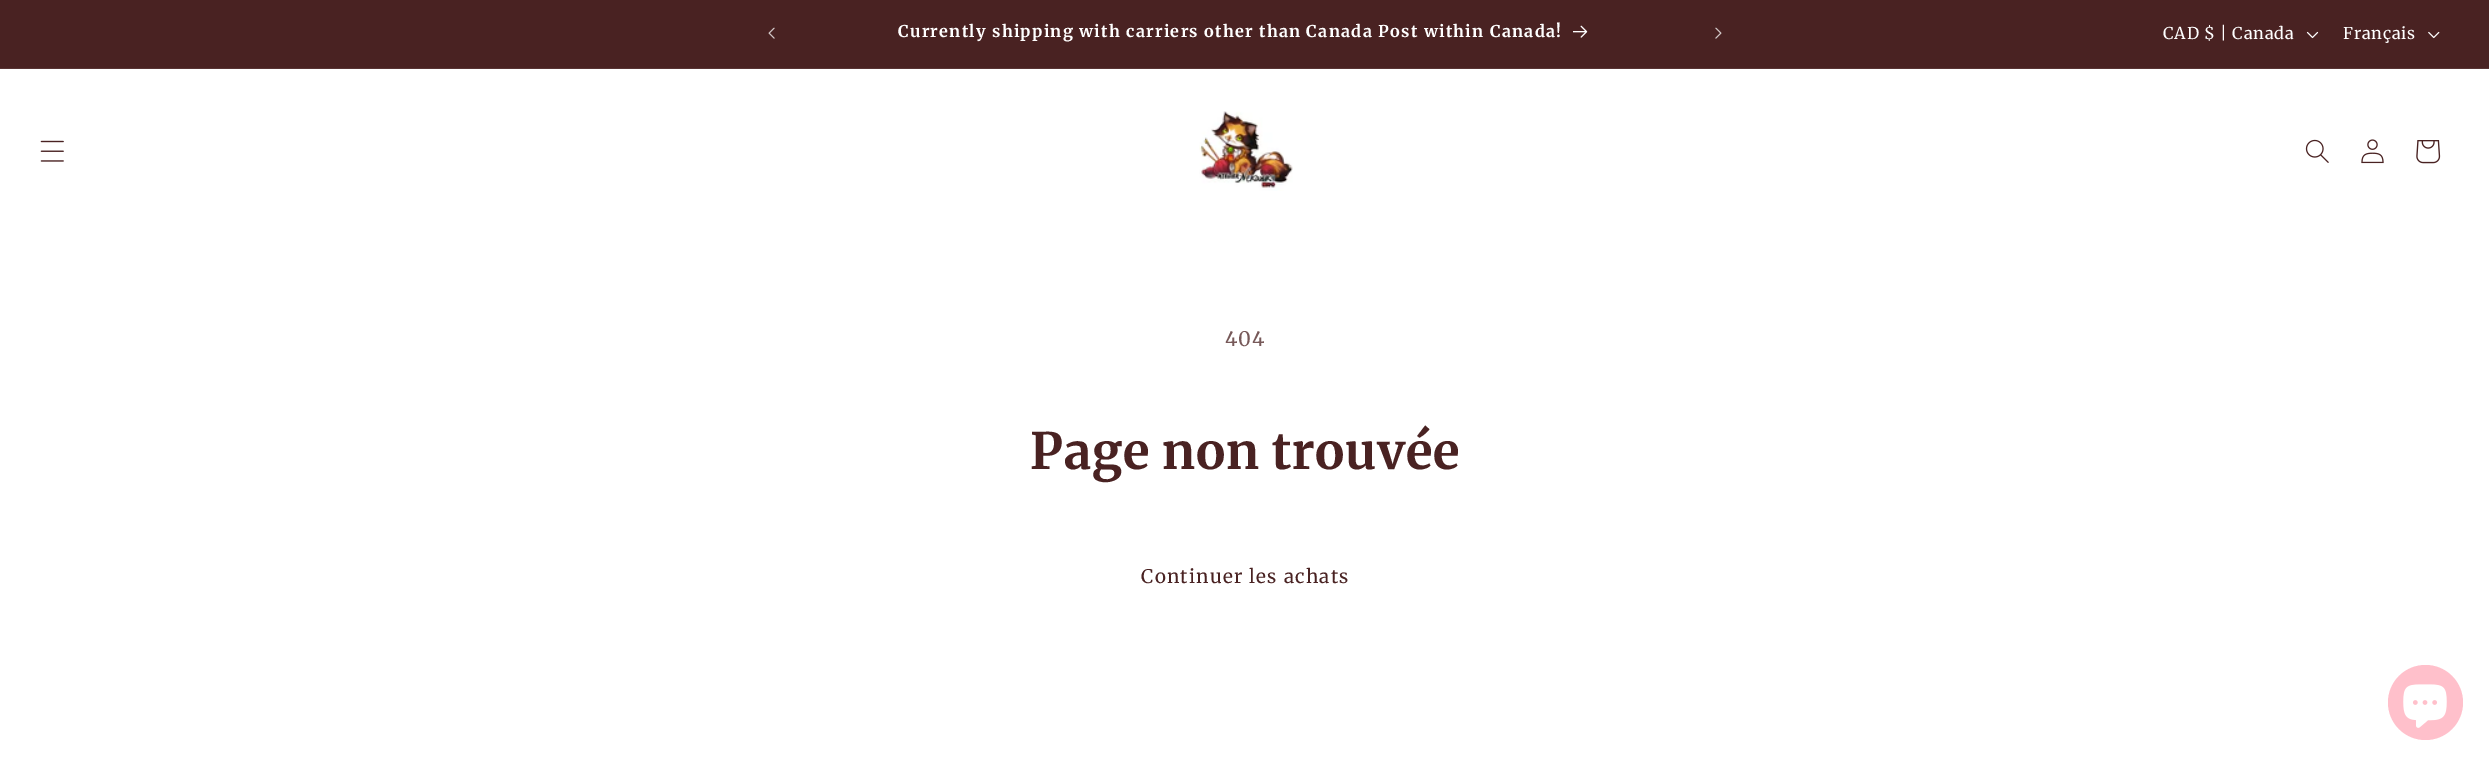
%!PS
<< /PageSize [2489 766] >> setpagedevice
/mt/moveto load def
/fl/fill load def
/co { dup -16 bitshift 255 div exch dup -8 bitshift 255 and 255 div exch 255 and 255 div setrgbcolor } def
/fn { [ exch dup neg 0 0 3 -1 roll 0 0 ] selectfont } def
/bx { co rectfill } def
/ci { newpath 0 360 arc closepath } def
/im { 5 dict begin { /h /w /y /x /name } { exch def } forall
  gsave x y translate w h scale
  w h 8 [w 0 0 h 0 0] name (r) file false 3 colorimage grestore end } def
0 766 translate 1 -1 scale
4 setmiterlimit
0 0 2489 766 16#FFFFFF bx
0 0 2489 68 16#492222 bx
0 68 2489 1 16#583434 bx
(media/1.raw) 768 27 7 12 im
(media/2.raw) 1573 25 15 13 im
(media/3.raw) 1715 27 7 12 im
(media/4.raw) 2306 31 13 8 im
(media/5.raw) 2428 31 12 8 im
(media/6.raw) 40 140 24 22 im
(media/7.raw) 1199 111 94 80 im
(media/8.raw) 2305 139 24 24 im
(media/9.raw) 2361 139 23 25 im
(media/10.raw) 2416 140 25 24 im
16#FFC0CB co
2425.5 702.5 37.5 ci fl
(media/11.raw) 2403 684 44 44 im
/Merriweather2-Bold 16.25 fn
16#FFFFFF co
898 37 mt 1.25 0 (Currently shipping with carriers other than Canada Post within Canada!) ashow
/Merriweather-Regular 16.25 fn
2163 39 mt .75 0 (CAD $ | Canada) ashow
2343 39 mt .75 0 (Français) ashow
/Merriweather-Regular 20 fn
16#775959 co
1225 346 mt .75 0 (404) ashow
/Merriweather-Bold 50 fn
16#492222 co
1030 469 mt .75 0 (Page non trouvée) ashow
/Merriweather-Regular 18.75 fn
1141 583 mt 1.25 0 (Continuer les achats) ashow
showpage
